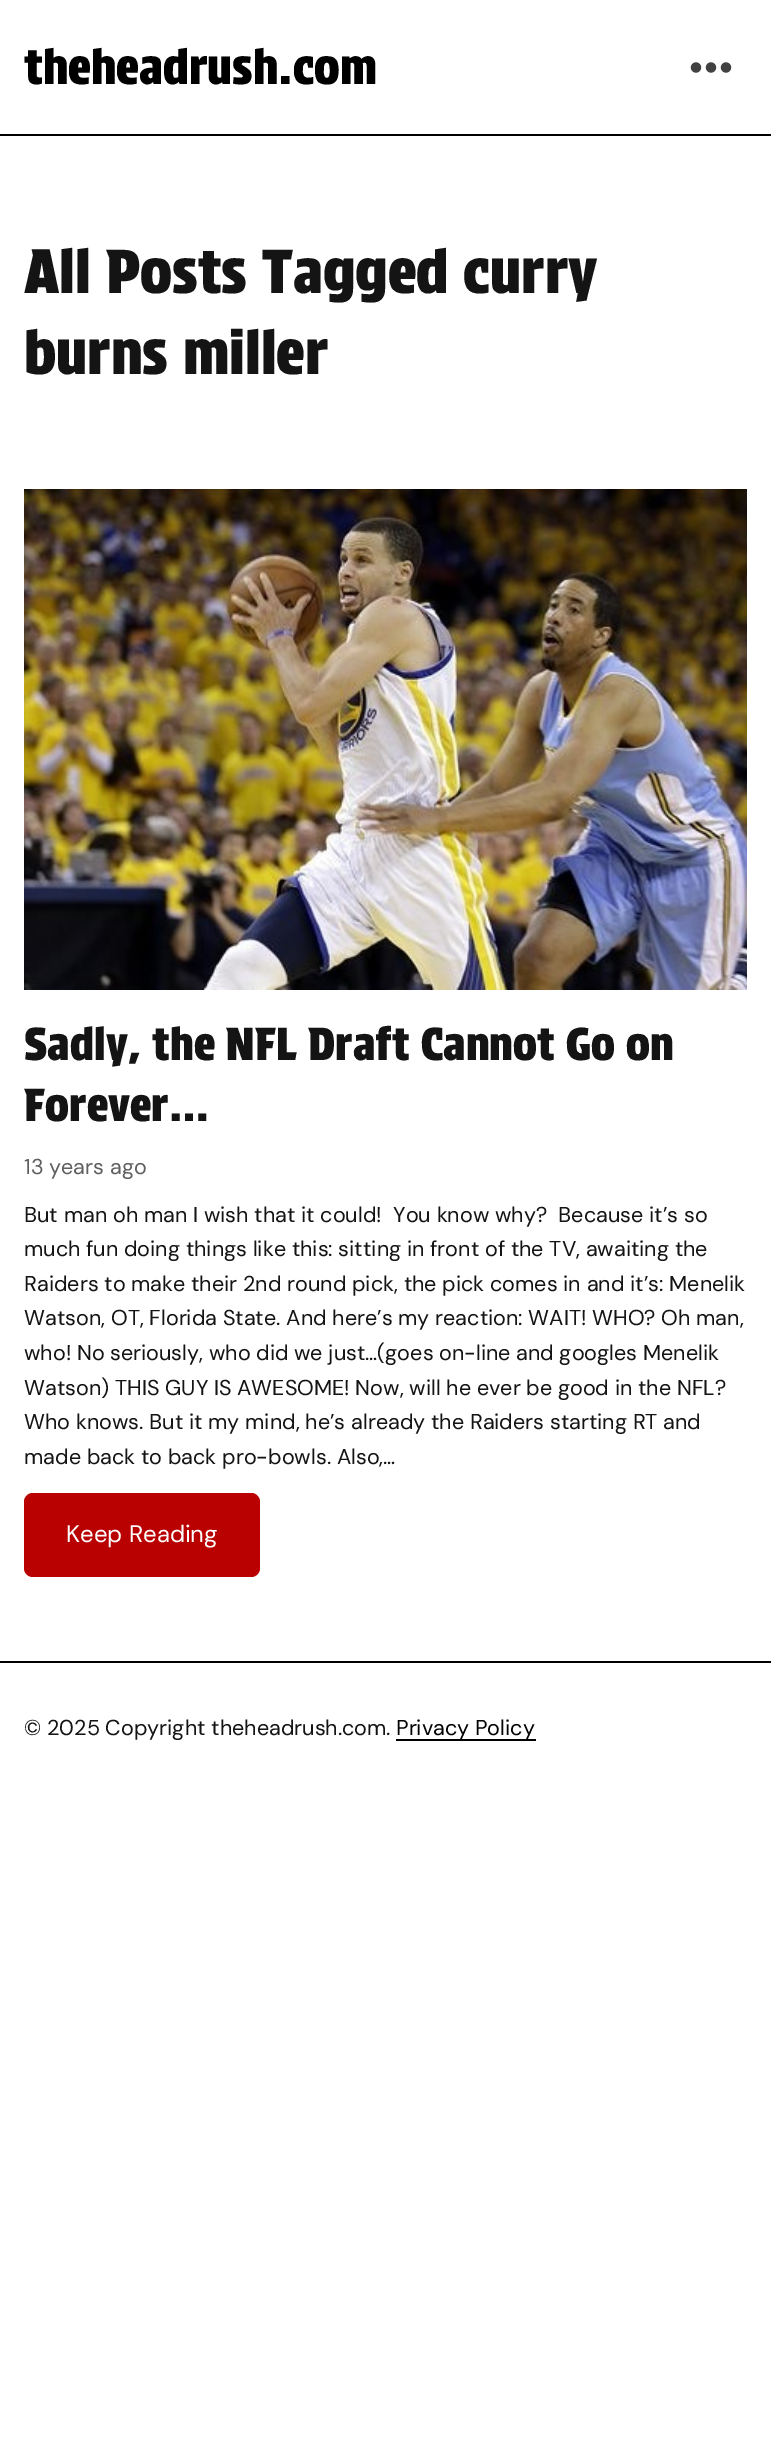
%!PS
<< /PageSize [771 2464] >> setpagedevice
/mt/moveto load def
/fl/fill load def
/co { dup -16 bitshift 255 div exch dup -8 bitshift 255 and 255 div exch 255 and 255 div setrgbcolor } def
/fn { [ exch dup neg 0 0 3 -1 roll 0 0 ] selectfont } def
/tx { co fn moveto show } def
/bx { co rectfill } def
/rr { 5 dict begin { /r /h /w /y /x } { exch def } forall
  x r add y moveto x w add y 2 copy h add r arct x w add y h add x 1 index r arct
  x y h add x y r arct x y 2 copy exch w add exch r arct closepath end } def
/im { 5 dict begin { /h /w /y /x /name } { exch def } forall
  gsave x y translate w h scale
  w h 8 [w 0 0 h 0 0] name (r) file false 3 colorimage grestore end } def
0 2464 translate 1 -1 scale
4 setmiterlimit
0 0 771 2464 16#FFFFFF bx
0 134 771 2 16#000000 bx
(media/1.raw) 690 62 42 11 im
(media/2.raw) 24 489 723 501 im
16#B90101 co
24 1493 236 84 9 rr fl
0 1661 771 2 16#000000 bx
396 1739 140 2 16#000000 bx
(theheadrush.com) 24 84 /ProtestStrike-Regular 48 16#000000 tx
(All Posts Tagged curry) 24 293 /ProtestStrike-Regular 60 16#141414 tx
(burns miller) 24 374 /ProtestStrike-Regular 60 16#141414 tx
(Sadly, the NFL Draft Cannot Go on) 24 1060 /ProtestStrike-Regular 44.9 16#141414 tx
(Forever…) 24 1121 /ProtestStrike-Regular 44.9 16#141414 tx
(13 years ago) 24 1174 /DMSans-Regular 21.6 16#5F5F5F tx
(But man oh man I wish that it could!  You know why?  Because it’s so) 24 1222 /DMSans-Regular 21.6 16#141414 tx
(much fun doing things like this: sitting in front of the TV, awaiting the) 24 1256 /DMSans-Regular 21.6 16#141414 tx
(Raiders to make their 2nd round pick, the pick comes in and it’s: Menelik) 24 1291 /DMSans-Regular 21.6 16#141414 tx
(Watson, OT, Florida State. And here’s my reaction: WAIT! WHO? Oh man,) 24 1325 /DMSans-Regular 21.6 16#141414 tx
24 1360 mt -.1 0 32 (who! No seriously, who did we just…\(goes on-line and googles Menelik) widthshow
(Watson\) THIS GUY IS AWESOME! Now, will he ever be good in the NFL?) 24 1395 /DMSans-Regular 21.6 16#141414 tx
(Who knows. But it my mind, he’s already the Raiders starting RT and) 24 1429 /DMSans-Regular 21.6 16#141414 tx
(made back to back pro-bowls. Also,…) 24 1464 /DMSans-Regular 21.6 16#141414 tx
(Keep Reading) 66 1542 /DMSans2-Regular 24 16#FFFFFF tx
(© 2025 Copyright theheadrush.com.) 24 1735 /DMSans-Regular 21.6 16#141414 tx
(Privacy Policy) 396 1735 /DMSans-Regular 21.6 16#000000 tx
showpage
